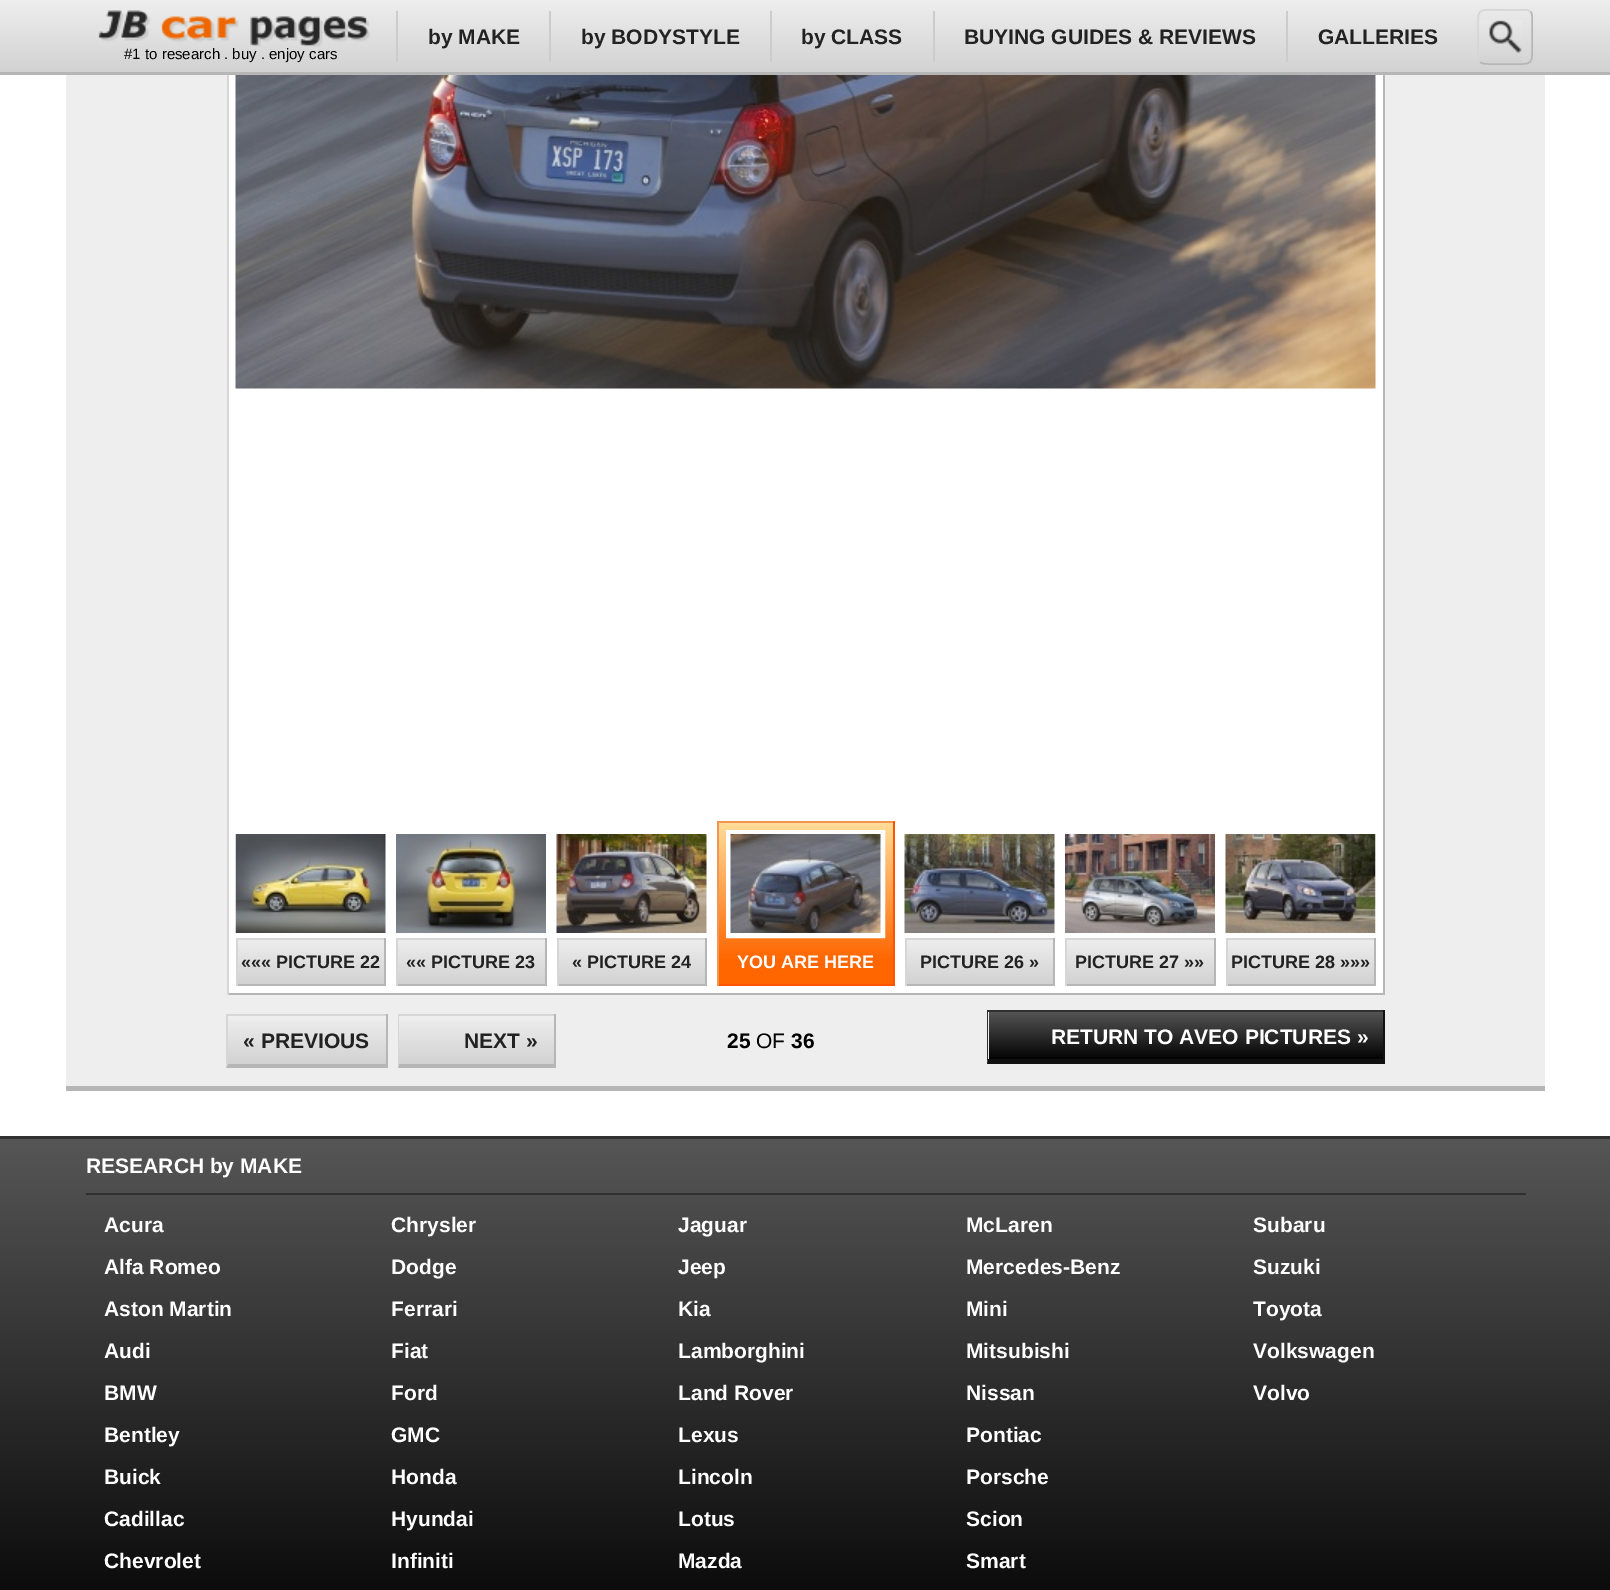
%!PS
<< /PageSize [1610 1590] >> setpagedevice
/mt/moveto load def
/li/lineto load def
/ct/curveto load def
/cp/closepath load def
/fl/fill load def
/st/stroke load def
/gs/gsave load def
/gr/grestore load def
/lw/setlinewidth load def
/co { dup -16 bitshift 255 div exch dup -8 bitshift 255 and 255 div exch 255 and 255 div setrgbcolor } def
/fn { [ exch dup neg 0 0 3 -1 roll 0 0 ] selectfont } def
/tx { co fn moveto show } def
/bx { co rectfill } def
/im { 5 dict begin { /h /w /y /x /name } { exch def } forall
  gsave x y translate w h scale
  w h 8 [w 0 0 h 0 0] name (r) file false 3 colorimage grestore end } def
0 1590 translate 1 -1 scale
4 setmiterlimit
0 0 1610 1590 16#FFFFFF bx
gs 0 0 mt 1610 0 li 1610 72 li 0 72 li cp clip newpath
<< /ShadingType 2 /ColorSpace /DeviceRGB /Coords [806 0 806 72] /Extend [true true] /Function << /FunctionType 2 /Domain [0 1] /C0 [.933 .933 .933] /C1 [.824 .824 .824] /N 1 >> >> shfill gr
0 72 1610 3 16#B6B6B6 bx
396 11 2 51 16#CCCCCC bx
549 11 2 51 16#CCCCCC bx
770 11 2 51 16#CCCCCC bx
933 11 2 51 16#CCCCCC bx
1286 11 2 51 16#CCCCCC bx
(media/1.raw) 1480 20 42 43 im
16#B6B6B6 co
1.5 lw
1530.5 11.5 mt 1533 14.5 1532 19.5 1532 23 ct 1532 37 li 1532 67.5 1536 64 1505 64 ct 1492 64 li 1488 64 1483 64.5 1480 62 ct st
16#D6D6D6 co
1480 62 mt 1477.5 59 1478 54 1478 50 ct 1478 37 li 1478 6 1474.5 10 1505 10 ct 1519 10 li 1522.5 10 1527.5 9 1530.5 11.5 ct st
(media/2.raw) 98 10 273 37 im
66 75 1479 1011 16#EEEEEE bx
66 1086 1479 5 16#B6B6B6 bx
229 75 1154 918 16#FFFFFF bx
1383 75 2 920 16#B6B6B6 bx
227 993 1158 2 16#B6B6B6 bx
227 75 2 920 16#D6D6D6 bx
(media/3.raw) 235 75 1141 314 im
(media/4.raw) 235 834 151 99 im
gs 238 940 mt 384 940 li 384 984 li 238 984 li cp clip newpath
<< /ShadingType 2 /ColorSpace /DeviceRGB /Coords [311 939 311 984] /Extend [true true] /Function << /FunctionType 2 /Domain [0 1] /C0 [.933 .933 .933] /C1 [.824 .824 .824] /N 1 >> >> shfill gr
236 938 150 2 16#D6D6D6 bx
384 938 2 48 16#B6B6B6 bx
236 984 150 2 16#B6B6B6 bx
236 938 2 48 16#D6D6D6 bx
(media/5.raw) 396 834 150 99 im
gs 398 940 mt 545 940 li 545 984 li 398 984 li cp clip newpath
<< /ShadingType 2 /ColorSpace /DeviceRGB /Coords [471 939 471 984] /Extend [true true] /Function << /FunctionType 2 /Domain [0 1] /C0 [.933 .933 .933] /C1 [.824 .824 .824] /N 1 >> >> shfill gr
396 938 150 2 16#D6D6D6 bx
545 938 2 48 16#B6B6B6 bx
396 984 150 2 16#B6B6B6 bx
396 938 2 48 16#D6D6D6 bx
(media/6.raw) 556 834 151 99 im
gs 559 940 mt 705 940 li 705 984 li 559 984 li cp clip newpath
<< /ShadingType 2 /ColorSpace /DeviceRGB /Coords [632 939 632 984] /Extend [true true] /Function << /FunctionType 2 /Domain [0 1] /C0 [.933 .933 .933] /C1 [.824 .824 .824] /N 1 >> >> shfill gr
557 938 150 2 16#D6D6D6 bx
705 938 2 48 16#B6B6B6 bx
557 984 150 2 16#B6B6B6 bx
557 938 2 48 16#D6D6D6 bx
gs 719 823 mt 893 823 li 893 984 li 719 984 li cp clip newpath
<< /ShadingType 2 /ColorSpace /DeviceRGB /Coords [806 822 806 984] /Extend [true true] /Function << /FunctionType 3 /Domain [0 1] /Functions [<< /FunctionType 2 /Domain [0 1] /C0 [1 .867 .6] /C1 [1 .4 0] /N 1 >> << /FunctionType 2 /Domain [0 1] /C0 [1 .4 0] /C1 [1 .4 0] /N 1 >>] /Bounds [.85] /Encode [0 1 0 1] >> >> shfill gr
717 821 177 2 16#F29654 bx
893 821 2 165 16#FF5500 bx
717 984 177 2 16#FF5500 bx
717 821 2 165 16#F29654 bx
16#FFFFFF co
5 lw
728.5 832.5 154 103 rectstroke
(media/7.raw) 730 834 151 99 im
(media/8.raw) 904 834 151 99 im
gs 907 940 mt 1053 940 li 1053 984 li 907 984 li cp clip newpath
<< /ShadingType 2 /ColorSpace /DeviceRGB /Coords [980 939 980 984] /Extend [true true] /Function << /FunctionType 2 /Domain [0 1] /C0 [.933 .933 .933] /C1 [.824 .824 .824] /N 1 >> >> shfill gr
905 938 150 2 16#D6D6D6 bx
1053 938 2 48 16#B6B6B6 bx
905 984 150 2 16#B6B6B6 bx
905 938 2 48 16#D6D6D6 bx
(media/9.raw) 1065 834 150 99 im
gs 1067 940 mt 1214 940 li 1214 984 li 1067 984 li cp clip newpath
<< /ShadingType 2 /ColorSpace /DeviceRGB /Coords [1140 939 1140 984] /Extend [true true] /Function << /FunctionType 2 /Domain [0 1] /C0 [.933 .933 .933] /C1 [.824 .824 .824] /N 1 >> >> shfill gr
1065 938 150 2 16#D6D6D6 bx
1214 938 2 48 16#B6B6B6 bx
1065 984 150 2 16#B6B6B6 bx
1065 938 2 48 16#D6D6D6 bx
(media/10.raw) 1225 834 151 99 im
gs 1228 940 mt 1374 940 li 1374 984 li 1228 984 li cp clip newpath
<< /ShadingType 2 /ColorSpace /DeviceRGB /Coords [1301 939 1301 984] /Extend [true true] /Function << /FunctionType 2 /Domain [0 1] /C0 [.933 .933 .933] /C1 [.824 .824 .824] /N 1 >> >> shfill gr
1226 938 150 2 16#D6D6D6 bx
1374 938 2 48 16#B6B6B6 bx
1226 984 150 2 16#B6B6B6 bx
1226 938 2 48 16#D6D6D6 bx
gs 228 1020 mt 386 1020 li 386 1064 li 228 1064 li cp clip newpath
<< /ShadingType 2 /ColorSpace /DeviceRGB /Coords [307 1016 307 1064] /Extend [true true] /Function << /FunctionType 2 /Domain [0 1] /C0 [.933 .933 .933] /C1 [.824 .824 .824] /N 1 >> >> shfill gr
227 1014 160 2 16#D6D6D6 bx
386 1014 2 54 16#B6B6B6 bx
387 1068 mt 226 1068 li 228 1064 li 386 1064 li cp fl
16#D6D6D6 co
226 1068 mt 226 1014 li 228 1016 li 228 1064 li cp fl
gs 399 1020 mt 554 1020 li 554 1064 li 399 1064 li cp clip newpath
<< /ShadingType 2 /ColorSpace /DeviceRGB /Coords [476 1016 476 1064] /Extend [true true] /Function << /FunctionType 2 /Domain [0 1] /C0 [.933 .933 .933] /C1 [.824 .824 .824] /N 1 >> >> shfill gr
398 1014 157 2 16#D6D6D6 bx
554 1014 2 54 16#B6B6B6 bx
555 1068 mt 398 1068 li 399 1064 li 554 1064 li cp fl
16#D6D6D6 co
398 1068 mt 398 1014 li 399 1016 li 399 1064 li cp fl
gs 989 1012 mt 1383 1012 li 1383 1059 li 989 1059 li cp clip newpath
<< /ShadingType 2 /ColorSpace /DeviceRGB /Coords [1186 1011 1186 1059] /Extend [true true] /Function << /FunctionType 2 /Domain [0 1] /C0 [.337 .337 .337] /C1 [.012 .012 .012] /N 1 >> >> shfill gr
987 1010 398 2 16#303030 bx
1383 1010 2 54 16#111111 bx
1384 1064 mt 987 1064 li 988 1059 li 1383 1059 li cp fl
16#303030 co
987 1064 mt 987 1010 li 988 1011 li 988 1059 li cp fl
gs 0 1139 mt 1610 1139 li 1610 1590 li 0 1590 li cp clip newpath
<< /ShadingType 2 /ColorSpace /DeviceRGB /Coords [806 1139 806 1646] /Extend [true true] /Function << /FunctionType 2 /Domain [0 1] /C0 [.337 .337 .337] /C1 [.012 .012 .012] /N 1 >> >> shfill gr
0 1136 1610 3 16#303030 bx
86 1193 1440 2 16#303030 bx
(by MAKE) 428 44 /LiberationSans-Bold 21 16#222222 tx
(by BODYSTYLE) 581 44 /LiberationSans-Bold 21 16#222222 tx
(by CLASS) 801 44 /LiberationSans-Bold 21 16#222222 tx
(BUYING GUIDES & REVIEWS) 964 44 /LiberationSans-Bold 21 16#222222 tx
(GALLERIES) 1318 44 /LiberationSans-Bold 21 16#222222 tx
(#1 to research . buy . enjoy cars) 124 59 /LiberationSans-Regular 15 16#000000 tx
(««« PICTURE 22) 241 968 /LiberationSans-Bold 18 16#222222 tx
(«« PICTURE 23) 406 968 /LiberationSans-Bold 18 16#222222 tx
(« PICTURE 24) 572 968 /LiberationSans-Bold 18 16#222222 tx
(YOU ARE HERE) 737 968 /LiberationSans-Bold 18 16#FFFFFF tx
(PICTURE 26 ») 920 968 /LiberationSans-Bold 18 16#222222 tx
(PICTURE 27 »») 1075 968 /LiberationSans-Bold 18 16#222222 tx
(PICTURE 28 »»») 1231 968 /LiberationSans-Bold 18 16#222222 tx
(« PREVIOUS) 243 1048 /LiberationSans-Bold 21 16#222222 tx
(NEXT ») 464 1048 /LiberationSans-Bold 21 16#222222 tx
(25) 727 1048 /LiberationSans-Bold 21 16#000000 tx
(OF) 756 1048 /LiberationSans-Regular 21 16#000000 tx
(36) 791 1048 /LiberationSans-Bold 21 16#000000 tx
(RETURN TO AVEO PICTURES ») 1051 1044 /LiberationSans-Bold 21 16#FFFFFF tx
(RESEARCH by MAKE) 86 1173 /LiberationSans-Bold 21 16#FFFFFF tx
(Acura) 104 1232 /LiberationSans-Bold 21 16#FFFFFF tx
(Chrysler) 391 1232 /LiberationSans-Bold 21 16#FFFFFF tx
(Jaguar) 678 1232 /LiberationSans-Bold 21 16#FFFFFF tx
(McLaren) 966 1232 /LiberationSans-Bold 21 16#FFFFFF tx
(Subaru) 1253 1232 /LiberationSans-Bold 21 16#FFFFFF tx
(Alfa Romeo) 104 1274 /LiberationSans-Bold 21 16#FFFFFF tx
(Dodge) 391 1274 /LiberationSans-Bold 21 16#FFFFFF tx
(Jeep) 678 1274 /LiberationSans-Bold 21 16#FFFFFF tx
(Mercedes-Benz) 966 1274 /LiberationSans-Bold 21 16#FFFFFF tx
(Suzuki) 1253 1274 /LiberationSans-Bold 21 16#FFFFFF tx
(Aston Martin) 104 1316 /LiberationSans-Bold 21 16#FFFFFF tx
(Ferrari) 391 1316 /LiberationSans-Bold 21 16#FFFFFF tx
(Kia) 678 1316 /LiberationSans-Bold 21 16#FFFFFF tx
(Mini) 966 1316 /LiberationSans-Bold 21 16#FFFFFF tx
(Toyota) 1253 1316 /LiberationSans-Bold 21 16#FFFFFF tx
(Audi) 104 1358 /LiberationSans-Bold 21 16#FFFFFF tx
(Fiat) 391 1358 /LiberationSans-Bold 21 16#FFFFFF tx
(Lamborghini) 678 1358 /LiberationSans-Bold 21 16#FFFFFF tx
(Mitsubishi) 966 1358 /LiberationSans-Bold 21 16#FFFFFF tx
(Volkswagen) 1253 1358 /LiberationSans-Bold 21 16#FFFFFF tx
(BMW) 104 1400 /LiberationSans-Bold 21 16#FFFFFF tx
(Ford) 391 1400 /LiberationSans-Bold 21 16#FFFFFF tx
(Land Rover) 678 1400 /LiberationSans-Bold 21 16#FFFFFF tx
(Nissan) 966 1400 /LiberationSans-Bold 21 16#FFFFFF tx
(Volvo) 1253 1400 /LiberationSans-Bold 21 16#FFFFFF tx
(Bentley) 104 1442 /LiberationSans-Bold 21 16#FFFFFF tx
(GMC) 391 1442 /LiberationSans-Bold 21 16#FFFFFF tx
(Lexus) 678 1442 /LiberationSans-Bold 21 16#FFFFFF tx
(Pontiac) 966 1442 /LiberationSans-Bold 21 16#FFFFFF tx
(Buick) 104 1484 /LiberationSans-Bold 21 16#FFFFFF tx
(Honda) 391 1484 /LiberationSans-Bold 21 16#FFFFFF tx
(Lincoln) 678 1484 /LiberationSans-Bold 21 16#FFFFFF tx
(Porsche) 966 1484 /LiberationSans-Bold 21 16#FFFFFF tx
(Cadillac) 104 1526 /LiberationSans-Bold 21 16#FFFFFF tx
(Hyundai) 391 1526 /LiberationSans-Bold 21 16#FFFFFF tx
(Lotus) 678 1526 /LiberationSans-Bold 21 16#FFFFFF tx
(Scion) 966 1526 /LiberationSans-Bold 21 16#FFFFFF tx
(Chevrolet) 104 1568 /LiberationSans-Bold 21 16#FFFFFF tx
(Infiniti) 391 1568 /LiberationSans-Bold 21 16#FFFFFF tx
(Mazda) 678 1568 /LiberationSans-Bold 21 16#FFFFFF tx
(Smart) 966 1568 /LiberationSans-Bold 21 16#FFFFFF tx
showpage
